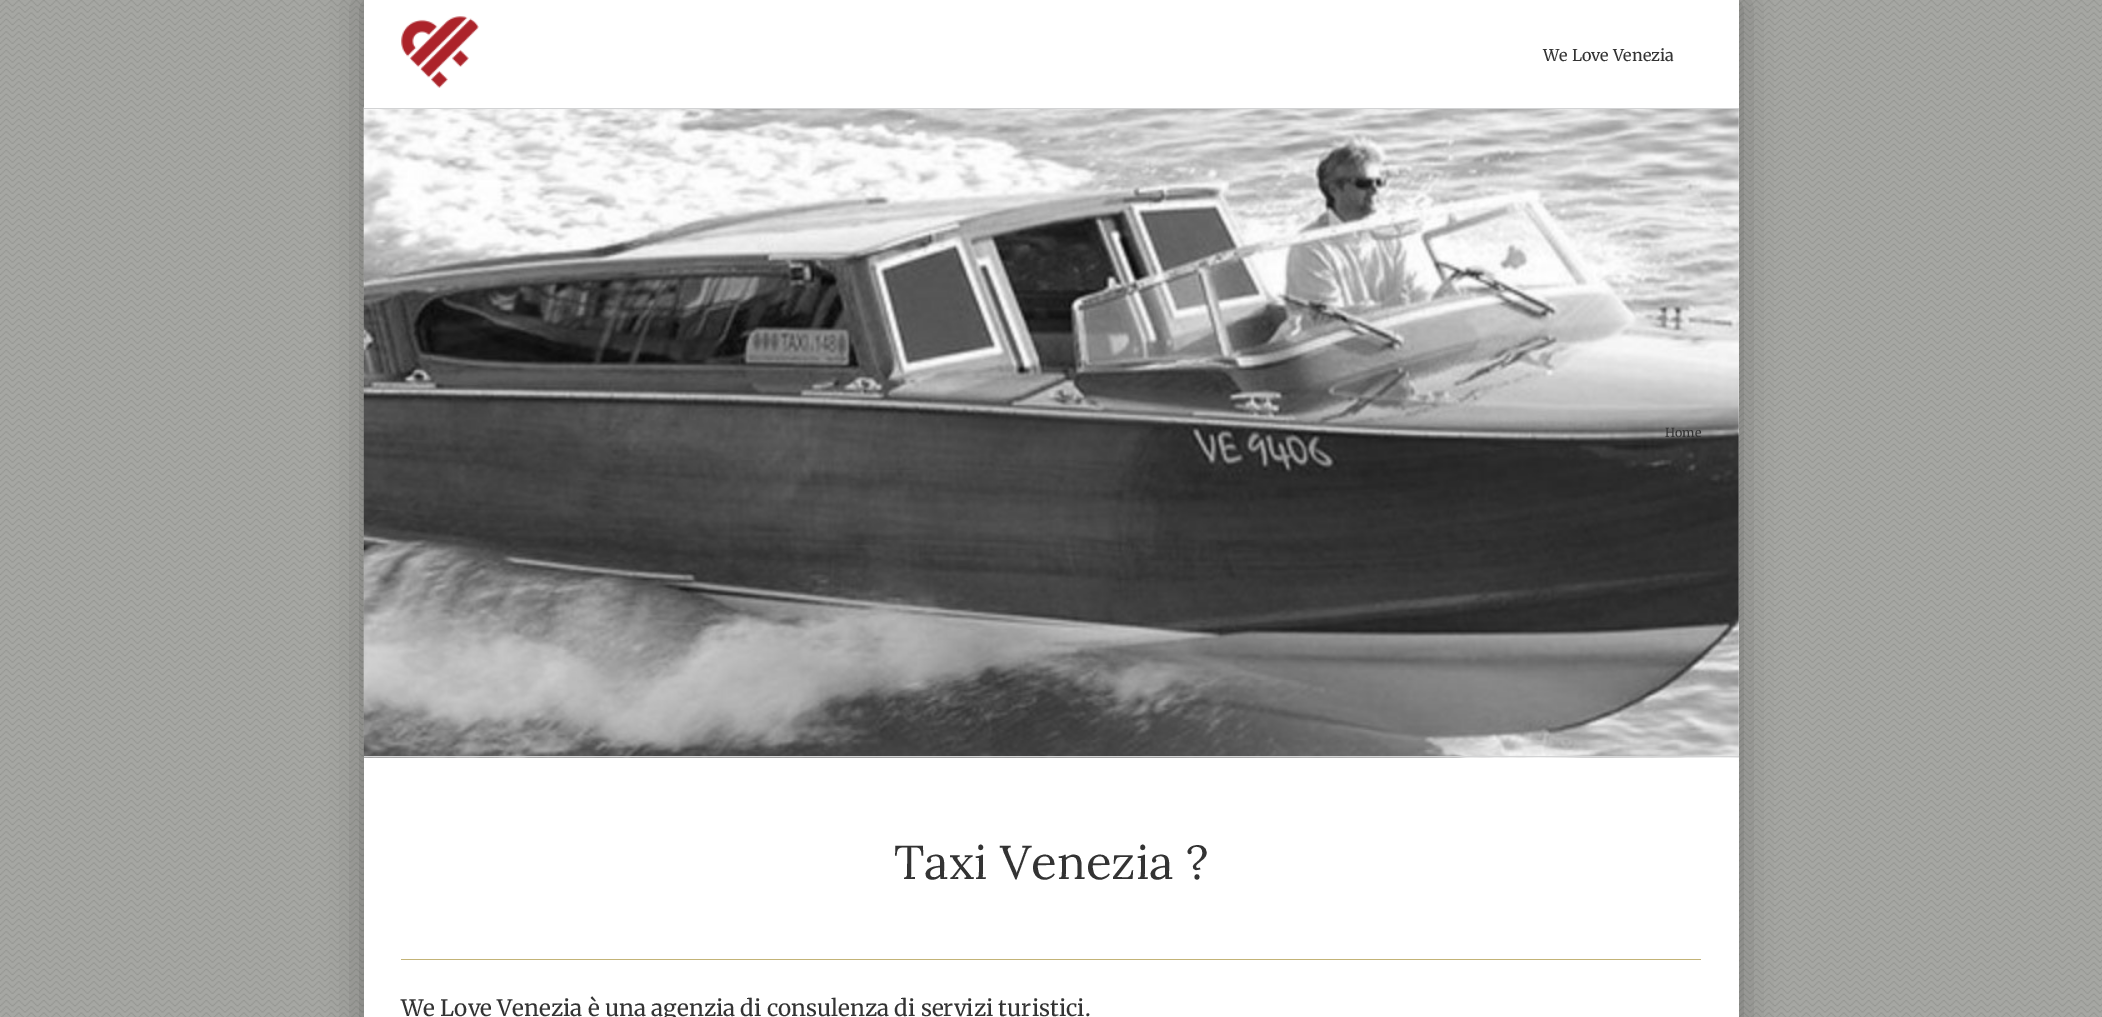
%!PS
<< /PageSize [2102 1017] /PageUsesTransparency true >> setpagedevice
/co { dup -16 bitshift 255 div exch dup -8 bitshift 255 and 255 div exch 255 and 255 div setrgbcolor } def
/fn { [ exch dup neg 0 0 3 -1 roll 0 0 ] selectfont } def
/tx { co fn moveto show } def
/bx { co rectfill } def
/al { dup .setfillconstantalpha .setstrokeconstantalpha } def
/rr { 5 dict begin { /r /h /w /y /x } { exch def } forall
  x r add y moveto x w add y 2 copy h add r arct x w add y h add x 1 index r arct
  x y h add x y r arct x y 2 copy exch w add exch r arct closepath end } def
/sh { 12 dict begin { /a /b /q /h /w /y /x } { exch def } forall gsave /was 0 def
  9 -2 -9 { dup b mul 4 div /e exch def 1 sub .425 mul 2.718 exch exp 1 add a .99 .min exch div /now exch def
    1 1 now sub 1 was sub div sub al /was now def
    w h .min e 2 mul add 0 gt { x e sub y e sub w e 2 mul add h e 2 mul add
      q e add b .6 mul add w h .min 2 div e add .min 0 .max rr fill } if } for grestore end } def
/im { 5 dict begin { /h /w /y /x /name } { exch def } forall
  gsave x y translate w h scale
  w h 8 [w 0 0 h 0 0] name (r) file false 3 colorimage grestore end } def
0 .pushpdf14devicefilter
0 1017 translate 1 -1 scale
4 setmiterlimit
0 0 2102 1017 16#FFFFFF bx
(media/1.raw) 0 0 2102 1017 im
16#000000 co
364 0 1375 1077 0 20 .3 sh
364 109 1375 649 16#F6F6F6 bx
(media/3.raw) 363 107 1376 651 im
364 0 1375 108 16#FFFFFF bx
(media/2.raw) 401 16 78 72 im
364 108 1375 1 16#D2D3D4 bx
364 756 1375 1 16#D2D3D4 bx
364 758 1375 259 16#FFFFFF bx
401 959 1300 1 16#C3B377 bx
(We Love Venezia) 1543 61 /Merriweather-Regular 16.25 16#333333 tx
(Home) 1665 437 /Merriweather-Regular 12.5 16#333333 tx
(Taxi Venezia ?) 894 879 /Lora-Regular 47.5 16#333333 tx
(We Love Venezia è una agenzia di consulenza di servizi turistici.) 401 1016 /Merriweather-Regular 22.5 16#333333 tx
.poppdf14devicefilter showpage
